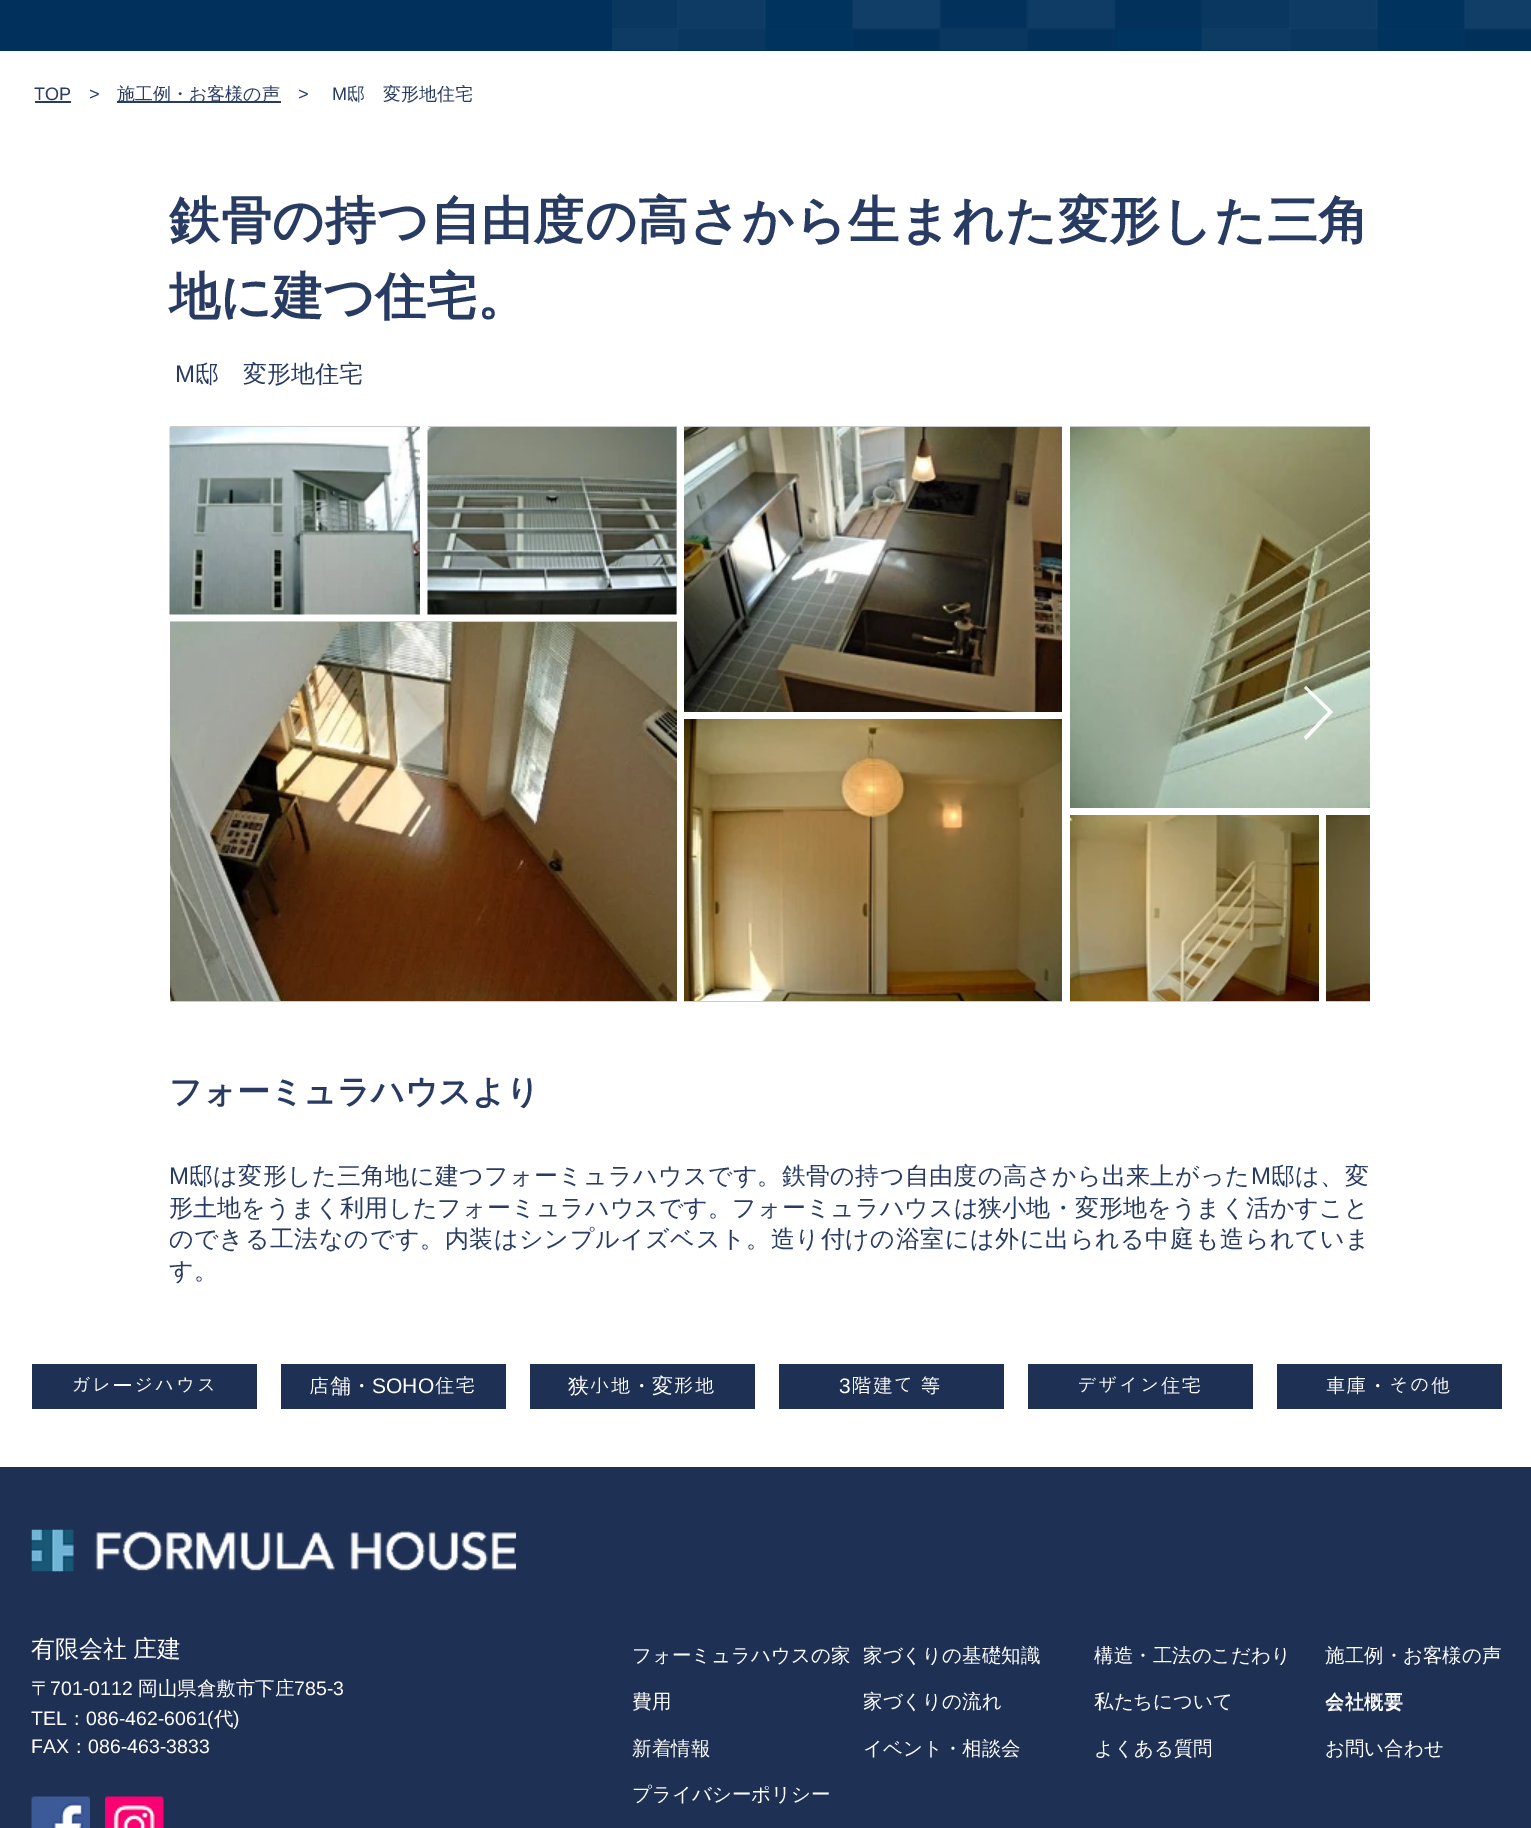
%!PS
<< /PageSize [1531 1828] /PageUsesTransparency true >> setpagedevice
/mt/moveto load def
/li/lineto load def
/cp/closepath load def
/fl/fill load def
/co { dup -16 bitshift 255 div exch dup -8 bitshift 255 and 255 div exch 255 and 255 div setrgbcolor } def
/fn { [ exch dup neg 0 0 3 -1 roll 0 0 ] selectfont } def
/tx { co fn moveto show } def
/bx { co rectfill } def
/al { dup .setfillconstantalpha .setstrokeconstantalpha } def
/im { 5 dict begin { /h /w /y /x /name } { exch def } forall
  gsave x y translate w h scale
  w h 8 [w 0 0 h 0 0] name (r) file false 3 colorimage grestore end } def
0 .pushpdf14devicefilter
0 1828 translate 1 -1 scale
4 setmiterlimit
0 0 1531 1828 16#FFFFFF bx
0 0 1531 51 16#00305B bx
(media/1.raw) 612 0 919 50 im
35 101 36 2 16#283B62 bx
117 101 164 2 16#283B62 bx
170 426 250 1 16#CCCCCC bx
(media/2.raw) 169 427 251 188 im
428 426 249 188 16#CCCCCC bx
(media/3.raw) 427 427 250 188 im
170 621 507 381 16#CCCCCC bx
(media/4.raw) 170 622 507 379 im
684 426 378 1 16#CCCCCC bx
(media/5.raw) 684 427 378 285 im
684 1001 378 1 16#CCCCCC bx
(media/6.raw) 684 719 378 282 im
1070 426 300 1 16#CCCCCC bx
(media/7.raw) 1070 427 300 381 im
1070 1001 249 1 16#CCCCCC bx
(media/8.raw) 1070 815 249 186 im
1326 1001 44 1 16#CCCCCC bx
(media/9.raw) 1326 815 44 186 im
0.9 al
16#FFFFFF co
1304 688 mt 1306 686 li 1333 712 li 1306 740 li 1304 737 li 1328 712 li cp fl
1 al
32 1364 225 45 16#1E3054 bx
281 1364 225 45 16#1E3054 bx
530 1364 225 45 16#1E3054 bx
779 1364 225 45 16#1E3054 bx
1028 1364 225 45 16#1E3054 bx
1277 1364 225 45 16#1E3054 bx
0 1467 1531 361 16#1E3054 bx
(media/10.raw) 31 1529 485 43 im
(media/11.raw) 31 1796 59 32 im
(media/12.raw) 105 1796 59 32 im
(TOP) 34 100 /LiberationSans-Regular 18 16#283B62 tx
(>) 89 100 /LiberationSans-Regular 18 16#283B62 tx
(施工例・お客様の声) 117 100 /WenQuanYiZenHei-Medium 18 16#283B62 tx
(>) 298 100 /LiberationSans-Regular 18 16#283B62 tx
(M) 332 100 /LiberationSans-Regular 18 16#283B62 tx
(邸　変形地住宅) 347 100 /WenQuanYiZenHei-Medium 18 16#283B62 tx
/WenQuanYiZenHei-Bold 51 fn
169 238 mt .65 0 (鉄骨の持つ自由度の高さから生まれた変形した三角) ashow
(地に建つ住宅。) 169 314 /WenQuanYiZenHei-Bold 51 16#283B62 tx
(M) 175 382 /LiberationSans-Regular 24 16#283B62 tx
(邸　変形地住宅) 195 382 /WenQuanYiZenHei-Medium 24 16#283B62 tx
(フォーミュラハウスより) 169 1103 /WenQuanYiZenHei-Bold 33 16#283B62 tx
/LiberationSans-Regular 24 fn
169 1184 mt .35 0 (M) ashow
/WenQuanYiZenHei-Medium 24 fn
189 1184 mt .35 0 (邸は変形した三角地に建つフォーミュラハウスです。鉄骨の持つ自由度の高さから出来上がった) ashow
/LiberationSans-Regular 24 fn
1251 1184 mt .35 0 (M) ashow
/WenQuanYiZenHei-Medium 24 fn
1271 1184 mt .35 0 (邸は、変) ashow
169 1216 mt .1 0 (形土地をうまく利用したフォーミュラハウスです。フォーミュラハウスは狭小地・変形地をうまく活かすこと) ashow
169 1247 mt .65 0 (のできる工法なのです。内装はシンプルイズベスト。造り付けの浴室には外に出られる中庭も造られていま) ashow
(す。) 169 1279 /WenQuanYiZenHei-Medium 24 16#283B62 tx
(ガレ) 70 1393 /Dotum-Regular 21 16#FFFFFF tx
(ー) 112 1393 /WenQuanYiZenHei-Medium 21 16#FFFFFF tx
(ジハウス) 133 1393 /Dotum-Regular 21 16#FFFFFF tx
(店) 309 1393 /Dotum-Regular 21 16#FFFFFF tx
(舗・) 330 1393 /WenQuanYiZenHei-Medium 21 16#FFFFFF tx
(SOHO) 372 1393 /LiberationSans-Regular 21 16#FFFFFF tx
(住宅) 434 1393 /Dotum-Regular 21 16#FFFFFF tx
(狭) 568 1393 /WenQuanYiZenHei-Medium 21 16#FFFFFF tx
(小地) 589 1393 /Dotum-Regular 21 16#FFFFFF tx
(・変) 631 1393 /WenQuanYiZenHei-Medium 21 16#FFFFFF tx
(形地) 673 1393 /Dotum-Regular 21 16#FFFFFF tx
(3) 839 1393 /LiberationSans-Regular 21 16#FFFFFF tx
/Dotum-Regular 21 fn
851 1393 mt -1 0 32 (階建て 等) widthshow
(デザイン住宅) 1076 1393 /Dotum-Regular 21 16#FFFFFF tx
(車庫) 1325 1393 /Dotum-Regular 21 16#FFFFFF tx
(・) 1367 1393 /WenQuanYiZenHei-Medium 21 16#FFFFFF tx
(その他) 1388 1393 /Dotum-Regular 21 16#FFFFFF tx
/WenQuanYiZenHei-Medium 24 fn
31 1657 mt -1 0 32 (有限会社 庄建) widthshow
(フォーミュラハウスの家) 632 1662 /WenQuanYiZenHei-Medium 19.5 16#FFFFFF tx
(家づくりの基礎知識) 863 1662 /WenQuanYiZenHei-Medium 19.5 16#FFFFFF tx
(構造・工法のこだわり) 1094 1662 /WenQuanYiZenHei-Medium 19.5 16#FFFFFF tx
(施工例・お客様の声) 1325 1662 /WenQuanYiZenHei-Medium 19.5 16#FFFFFF tx
(費用) 632 1708 /WenQuanYiZenHei-Medium 19.5 16#FFFFFF tx
(家づくりの流れ) 863 1708 /WenQuanYiZenHei-Medium 19.5 16#FFFFFF tx
(私たちについて) 1094 1708 /WenQuanYiZenHei-Medium 19.5 16#FFFFFF tx
(新着情報) 632 1755 /WenQuanYiZenHei-Medium 19.5 16#FFFFFF tx
(イベント・相談会) 863 1755 /WenQuanYiZenHei-Medium 19.5 16#FFFFFF tx
(よくある質問) 1094 1755 /WenQuanYiZenHei-Medium 19.5 16#FFFFFF tx
(お問い合わせ) 1325 1755 /WenQuanYiZenHei-Medium 19.5 16#FFFFFF tx
(プライバシーポリシー) 632 1801 /WenQuanYiZenHei-Medium 19.5 16#FFFFFF tx
(〒) 31 1695 /WenQuanYiZenHei-Medium 19.5 16#FFFFFF tx
(701-0112) 50 1695 /LiberationSans-Regular 19.5 16#FFFFFF tx
(岡山県倉敷市下庄) 138 1695 /WenQuanYiZenHei-Medium 19.5 16#FFFFFF tx
(785-3) 294 1695 /LiberationSans-Regular 19.5 16#FFFFFF tx
(TEL) 31 1725 /LiberationSans-Regular 19.5 16#FFFFFF tx
(：) 67 1725 /WenQuanYiZenHei-Medium 19.5 16#FFFFFF tx
(086-462-6061\() 86 1725 /LiberationSans-Regular 19.5 16#FFFFFF tx
(代) 214 1725 /WenQuanYiZenHei-Medium 19.5 16#FFFFFF tx
(\)) 233 1725 /LiberationSans-Regular 19.5 16#FFFFFF tx
(FAX) 31 1753 /LiberationSans-Regular 19.5 16#FFFFFF tx
(：) 69 1753 /WenQuanYiZenHei-Medium 19.5 16#FFFFFF tx
(086-463-3833) 88 1753 /LiberationSans-Regular 19.5 16#FFFFFF tx
(会社概要) 1325 1709 /WenQuanYiZenHei-Medium 19.5 16#FFFFFF tx
(会社概要) 1325 1708 /WenQuanYiZenHei-Medium 19.5 16#FFFFFF tx
.poppdf14devicefilter showpage
